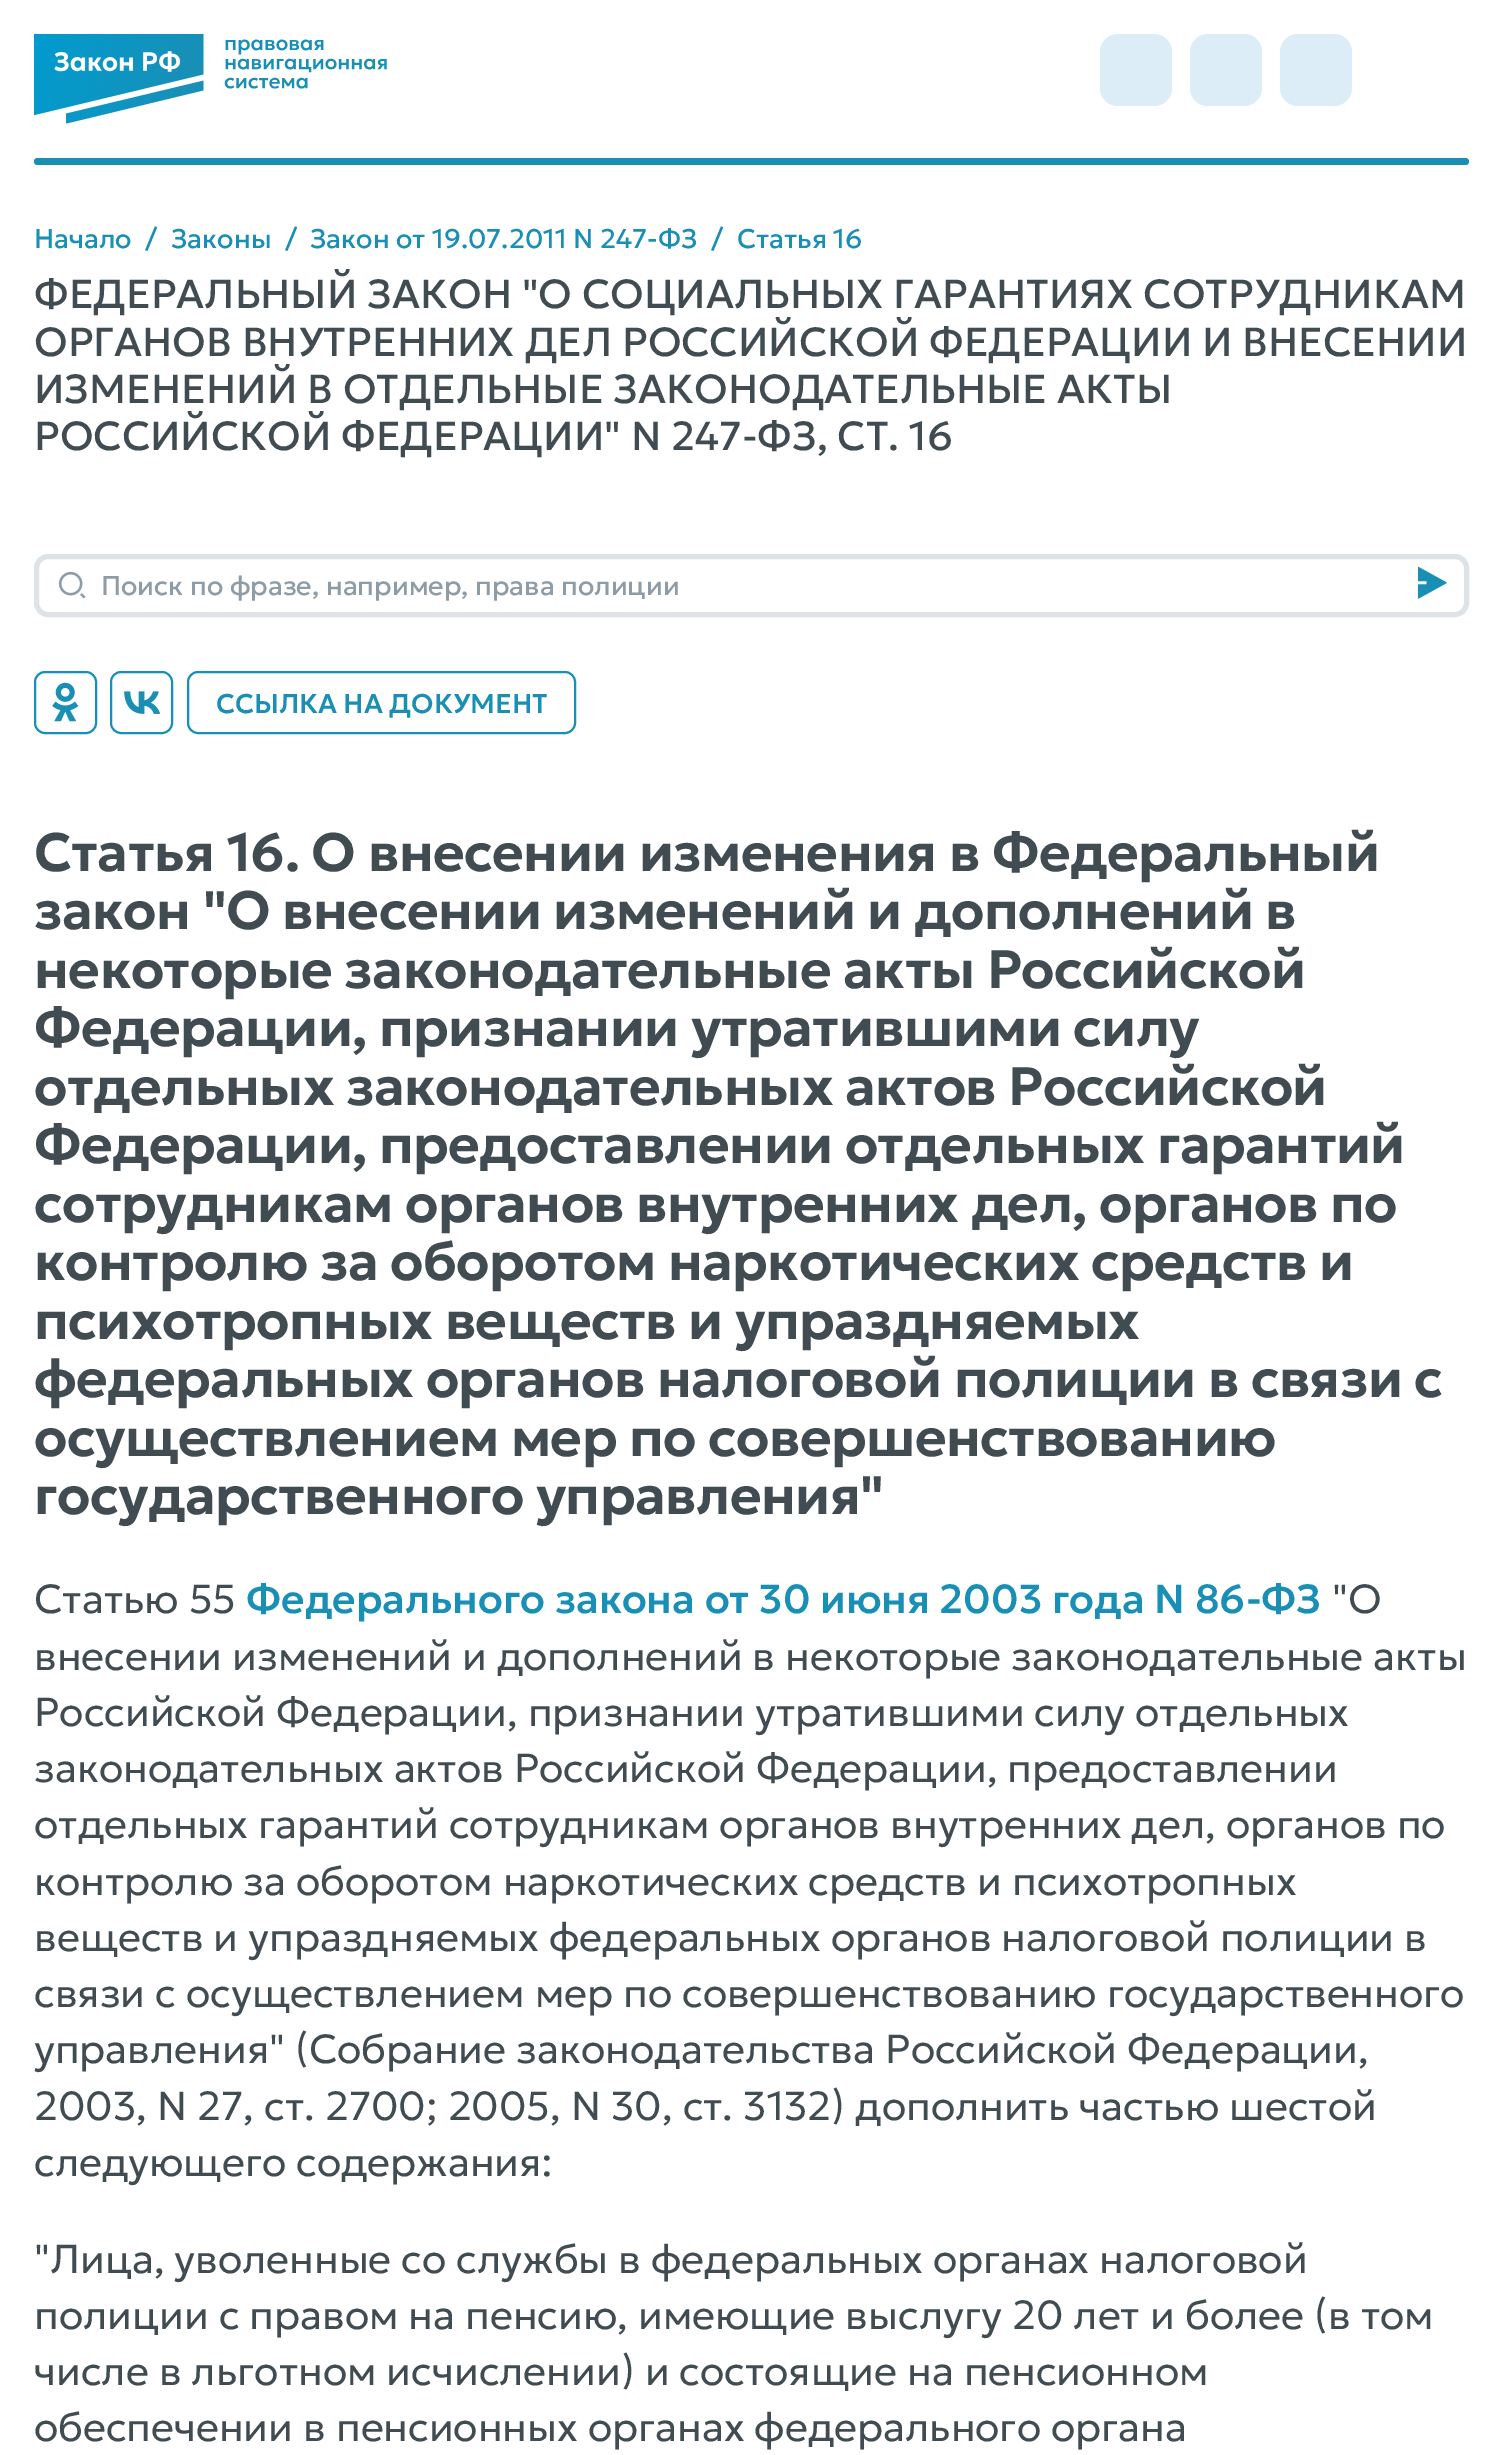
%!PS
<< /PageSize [1502 2455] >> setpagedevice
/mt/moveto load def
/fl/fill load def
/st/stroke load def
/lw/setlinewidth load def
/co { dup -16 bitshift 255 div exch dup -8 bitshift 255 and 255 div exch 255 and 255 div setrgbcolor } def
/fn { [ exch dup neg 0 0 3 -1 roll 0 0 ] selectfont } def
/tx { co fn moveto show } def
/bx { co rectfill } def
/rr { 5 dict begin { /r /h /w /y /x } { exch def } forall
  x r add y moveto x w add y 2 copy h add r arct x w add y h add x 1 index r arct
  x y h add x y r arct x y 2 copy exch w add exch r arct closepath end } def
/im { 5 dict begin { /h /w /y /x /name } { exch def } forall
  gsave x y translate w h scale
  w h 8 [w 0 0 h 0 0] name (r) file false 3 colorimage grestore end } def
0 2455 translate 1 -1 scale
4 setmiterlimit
0 0 1502 2455 16#FFFFFF bx
(media/1.raw) 34 34 353 90 im
16#DDEDF7 co
1100 34 72 72 18 rr fl
1190 34 72 72 18 rr fl
1280 34 72 72 18 rr fl
16#198FB6 co
34 158 1435 7 3.5 rr fl
(media/2.raw) 58 571 28 28 im
16#DEE3E8 co
5 lw
36.5 556.5 1430 58 11.5 rr st
(media/3.raw) 1418 566 29 33 im
(media/4.raw) 52 682 27 40 im
16#198FB6 co
2 lw
35 672 61 61 10 rr st
(media/5.raw) 124 691 37 23 im
111 672 61 61 10 rr st
188 672 387 61 10 rr st
(Начало) 34 248 /Geologica-Regular 27 16#198FB6 tx
(/) 145 248 /Geologica-Regular 27 16#198FB6 tx
(Законы) 171 248 /Geologica-Regular 27 16#198FB6 tx
(/) 285 248 /Geologica-Regular 27 16#198FB6 tx
(Закон от 19.07.2011 N 247-ФЗ) 310 248 /Geologica-Regular 27 16#198FB6 tx
(/) 711 248 /Geologica-Regular 27 16#198FB6 tx
(Статья 16) 737 248 /Geologica-Regular 27 16#198FB6 tx
(ФЕДЕРАЛЬНЫЙ ЗАКОН "О СОЦИАЛЬНЫХ ГАРАНТИЯХ СОТРУДНИКАМ) 34 308 /Geologica-Regular 40.5 16#404C51 tx
(ОРГАНОВ ВНУТРЕННИХ ДЕЛ РОССИЙСКОЙ ФЕДЕРАЦИИ И ВНЕСЕНИИ) 34 356 /Geologica-Regular 40.5 16#404C51 tx
(ИЗМЕНЕНИЙ В ОТДЕЛЬНЫЕ ЗАКОНОДАТЕЛЬНЫЕ АКТЫ) 34 403 /Geologica-Regular 40.5 16#404C51 tx
(РОССИЙСКОЙ ФЕДЕРАЦИИ" N 247-ФЗ, СТ. 16) 34 450 /Geologica-Regular 40.5 16#404C51 tx
(Поиск по фразе, например, права полиции) 101 595 /Geologica-Regular 27 16#8E9CA7 tx
(ССЫЛКА НА ДОКУМЕНТ) 216 713 /Geologica-Medium 27 16#198FB6 tx
/Geologica-SemiBold 54 fn
16#404C51 co
34 871 mt -.55 0 (Статья 16. О внесении изменения в Федеральный) ashow
34 929 mt -.55 0 (закон "О внесении изменений и дополнений в) ashow
34 988 mt -.55 0 (некоторые законодательные акты Российской) ashow
34 1046 mt -.55 0 (Федерации, признании утратившими силу) ashow
34 1105 mt -.55 0 (отдельных законодательных актов Российской) ashow
34 1163 mt -.55 0 (Федерации, предоставлении отдельных гарантий) ashow
34 1222 mt -.55 0 (сотрудникам органов внутренних дел, органов по) ashow
34 1280 mt -.55 0 (контролю за оборотом наркотических средств и) ashow
34 1339 mt -.55 0 (психотропных веществ и упраздняемых) ashow
34 1397 mt -.55 0 (федеральных органов налоговой полиции в связи с) ashow
34 1456 mt -.55 0 (осуществлением мер по совершенствованию) ashow
34 1514 mt -.55 0 (государственного управления") ashow
(Статью 55) 34 1613 /Geologica-Light 40.5 16#404C51 tx
(Федерального закона от 30 июня 2003 года N 86-ФЗ) 246 1613 /Geologica-Medium 40.5 16#198FB6 tx
("О) 1332 1613 /Geologica-Light 40.5 16#404C51 tx
(внесении изменений и дополнений в некоторые законодательные акты) 34 1670 /Geologica-Light 40.5 16#404C51 tx
(Российской Федерации, признании утратившими силу отдельных) 34 1726 /Geologica-Light 40.5 16#404C51 tx
(законодательных актов Российской Федерации, предоставлении) 34 1782 /Geologica-Light 40.5 16#404C51 tx
(отдельных гарантий сотрудникам органов внутренних дел, органов по) 34 1838 /Geologica-Light 40.5 16#404C51 tx
(контролю за оборотом наркотических средств и психотропных) 34 1895 /Geologica-Light 40.5 16#404C51 tx
(веществ и упраздняемых федеральных органов налоговой полиции в) 34 1951 /Geologica-Light 40.5 16#404C51 tx
(связи с осуществлением мер по совершенствованию государственного) 34 2007 /Geologica-Light 40.5 16#404C51 tx
(управления" \(Собрание законодательства Российской Федерации,) 34 2063 /Geologica-Light 40.5 16#404C51 tx
(2003, N 27, ст. 2700; 2005, N 30, ст. 3132\) дополнить частью шестой) 34 2120 /Geologica-Light 40.5 16#404C51 tx
(следующего содержания:) 34 2176 /Geologica-Light 40.5 16#404C51 tx
("Лица, уволенные со службы в федеральных органах налоговой) 34 2273 /Geologica-Light 40.5 16#404C51 tx
(полиции с правом на пенсию, имеющие выслугу 20 лет и более \(в том) 34 2329 /Geologica-Light 40.5 16#404C51 tx
(числе в льготном исчислении\) и состоящие на пенсионном) 34 2385 /Geologica-Light 40.5 16#404C51 tx
(обеспечении в пенсионных органах федерального органа) 34 2441 /Geologica-Light 40.5 16#404C51 tx
showpage
